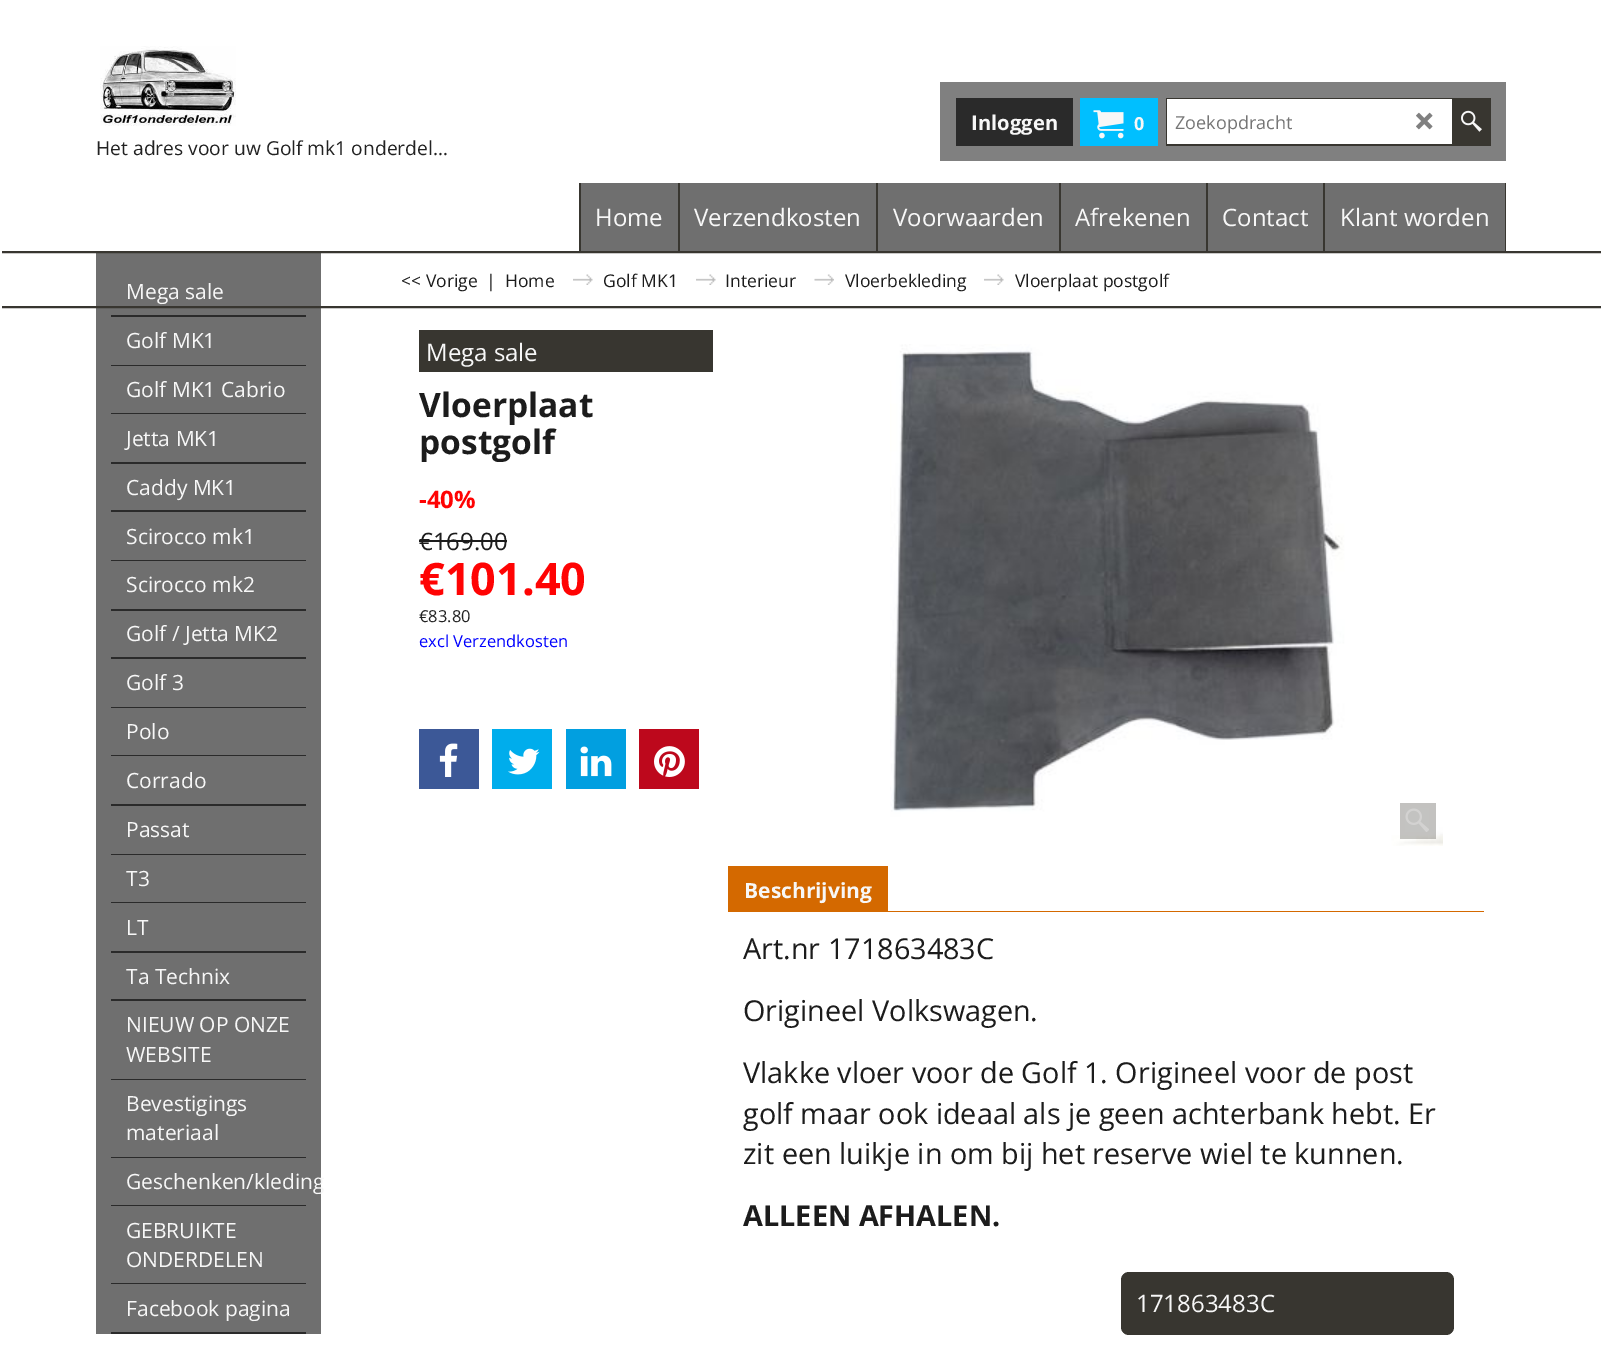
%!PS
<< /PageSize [1602 1352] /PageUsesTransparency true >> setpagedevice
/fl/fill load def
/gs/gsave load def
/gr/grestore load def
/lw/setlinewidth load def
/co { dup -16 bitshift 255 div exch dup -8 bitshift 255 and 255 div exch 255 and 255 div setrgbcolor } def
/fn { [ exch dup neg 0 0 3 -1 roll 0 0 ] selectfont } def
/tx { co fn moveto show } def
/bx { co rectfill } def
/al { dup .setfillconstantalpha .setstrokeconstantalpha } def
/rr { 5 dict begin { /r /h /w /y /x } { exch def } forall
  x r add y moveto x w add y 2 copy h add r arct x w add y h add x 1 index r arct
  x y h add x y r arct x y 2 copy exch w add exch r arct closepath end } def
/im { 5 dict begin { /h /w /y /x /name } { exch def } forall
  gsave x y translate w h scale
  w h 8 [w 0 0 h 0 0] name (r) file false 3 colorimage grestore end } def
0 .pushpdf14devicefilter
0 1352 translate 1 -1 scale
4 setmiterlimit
0 0 1602 1352 16#FFFFFF bx
940 82 566 79 16#808080 bx
956 98 117 48 16#2A2A2A bx
1080 98 78 48 16#00BFFF bx
(media/1.raw) 1093 110 31 29 im
1166 98 325 48 16#383630 bx
1167 99 285 45 16#FFFFFF bx
(media/2.raw) 1416 112 17 18 im
(media/3.raw) 1461 110 21 22 im
(media/4.raw) 100 46 136 80 im
581 183 924 68 16#6F6F6F bx
579 183 2 68 16#383630 bx
678 183 2 68 16#383630 bx
876 183 2 68 16#383630 bx
1059 183 2 68 16#383630 bx
1206 183 2 68 16#383630 bx
1323 183 2 68 16#383630 bx
1505 183 1 68 16#383630 bx
96 253 225 1081 16#6F6F6F bx
111 315 195 2 16#2A2A2A bx
111 365 195 1 16#2A2A2A bx
111 413 195 1 16#2A2A2A bx
111 462 195 2 16#2A2A2A bx
111 510 195 2 16#2A2A2A bx
111 560 195 1 16#2A2A2A bx
111 609 195 2 16#2A2A2A bx
111 657 195 2 16#2A2A2A bx
111 707 195 1 16#2A2A2A bx
111 755 195 1 16#2A2A2A bx
111 804 195 2 16#2A2A2A bx
111 854 195 1 16#2A2A2A bx
111 902 195 1 16#2A2A2A bx
111 951 195 2 16#2A2A2A bx
111 999 195 2 16#2A2A2A bx
111 1079 195 1 16#2A2A2A bx
111 1157 195 1 16#2A2A2A bx
111 1205 195 1 16#2A2A2A bx
111 1283 195 1 16#2A2A2A bx
111 1332 195 2 16#2A2A2A bx
gs
2 2 1599 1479 rectclip
16#383630 co
2 lw
-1 252 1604 55 rectstroke
gr
(media/5.raw) 573 274 20 11 im
(media/6.raw) 696 274 20 11 im
(media/7.raw) 814 274 20 11 im
(media/6.raw) 984 274 20 11 im
419 330 294 42 16#383630 bx
419 540 88 2 16#1C1C1C bx
419 729 60 60 16#3C5897 bx
(media/8.raw) 439 743 19 34 im
492 729 60 60 16#00ADEC bx
(media/9.raw) 508 748 32 27 im
566 729 60 60 16#019FE0 bx
(media/10.raw) 580 746 32 31 im
639 729 60 60 16#BD081C bx
(media/11.raw) 654 746 31 31 im
(media/12.raw) 890 344 553 502 im
0.3 al
1400 803 36 36 16#383630 bx
1 al
(media/13.raw) 1405 808 24 24 im
728 866 160 46 16#D46900 bx
888 911 596 1 16#D46900 bx
16#383630 co
1121 1272 333 63 8 rr fl
(Inloggen) 971 130 /OpenSans-Bold 20.25 16#F7F7F7 tx
(0) 1134 130 /OpenSans-Bold 18 16#F7F7F7 tx
(Zoekopdracht) 1175 129 /OpenSans-Regular 18 16#757575 tx
(Het adres voor uw Golf mk1 onderdel…) 96 155 /OpenSans-Regular 19.25 16#222222 tx
(Home) 595 226 /OpenSans-Regular 24 16#F7F7F7 tx
(Verzendkosten) 694 226 /OpenSans-Regular 24 16#F7F7F7 tx
(Voorwaarden) 893 226 /OpenSans-Regular 24 16#F7F7F7 tx
(Afrekenen) 1075 226 /OpenSans-Regular 24 16#F7F7F7 tx
(Contact) 1222 226 /OpenSans-Regular 24 16#F7F7F7 tx
(Klant worden) 1340 226 /OpenSans-Regular 24 16#F7F7F7 tx
(Mega sale) 126 299 /OpenSans-Regular 21 16#F7F7F7 tx
(Golf MK1) 126 348 /OpenSans-Regular 21 16#F7F7F7 tx
(Golf MK1 Cabrio) 126 397 /OpenSans-Regular 21 16#F7F7F7 tx
(Jetta MK1) 126 446 /OpenSans-Regular 21 16#F7F7F7 tx
(Caddy MK1) 126 495 /OpenSans-Regular 21 16#F7F7F7 tx
(Scirocco mk1) 126 544 /OpenSans-Regular 21 16#F7F7F7 tx
(Scirocco mk2) 126 592 /OpenSans-Regular 21 16#F7F7F7 tx
(Golf / Jetta MK2) 126 641 /OpenSans-Regular 21 16#F7F7F7 tx
(Golf 3) 126 690 /OpenSans-Regular 21 16#F7F7F7 tx
(Polo) 126 739 /OpenSans-Regular 21 16#F7F7F7 tx
(Corrado) 126 788 /OpenSans-Regular 21 16#F7F7F7 tx
(Passat) 126 837 /OpenSans-Regular 21 16#F7F7F7 tx
(T3) 126 886 /OpenSans-Regular 21 16#F7F7F7 tx
(LT) 126 935 /OpenSans-Regular 21 16#F7F7F7 tx
(Ta Technix) 126 984 /OpenSans-Regular 21 16#F7F7F7 tx
(NIEUW OP ONZE) 126 1032 /OpenSans-Regular 21 16#F7F7F7 tx
(WEBSITE) 126 1062 /OpenSans-Regular 21 16#F7F7F7 tx
(Bevestigings) 126 1111 /OpenSans-Regular 21 16#F7F7F7 tx
(materiaal) 126 1140 /OpenSans-Regular 21 16#F7F7F7 tx
(Geschenken/kleding) 126 1189 /OpenSans-Regular 21 16#F7F7F7 tx
(GEBRUIKTE) 126 1238 /OpenSans-Regular 21 16#F7F7F7 tx
(ONDERDELEN) 126 1267 /OpenSans-Regular 21 16#F7F7F7 tx
(Facebook pagina) 126 1316 /OpenSans-Regular 21 16#F7F7F7 tx
(<< Vorige) 401 287 /OpenSans-Regular 17.5 16#1C1C1C tx
(|) 486 287 /OpenSans-Regular 17.5 16#1C1C1C tx
(Home) 505 287 /OpenSans-Regular 17.5 16#1C1C1C tx
(Golf MK1) 603 287 /OpenSans-Regular 17.5 16#1C1C1C tx
(Interieur) 725 287 /OpenSans-Regular 17.5 16#1C1C1C tx
(Vloerbekleding) 845 287 /OpenSans-Regular 17.5 16#1C1C1C tx
(Vloerplaat postgolf) 1015 287 /OpenSans-Regular 17.5 16#1C1C1C tx
(Mega sale) 426 361 /OpenSans-Regular 24 16#F7F7F7 tx
(Vloerplaat) 419 417 /OpenSans-Bold 33.5 16#1C1C1C tx
(postgolf) 419 454 /OpenSans-Bold 33.5 16#1C1C1C tx
(-40%) 419 508 /OpenSans-Bold 24 16#FF0303 tx
(€169.00) 419 550 /OpenSans-Regular 24 16#1C1C1C tx
(€101.40) 419 595 /OpenSans-Bold 45 16#FF0303 tx
(€83.80) 419 622 /OpenSans-Regular 16.5 16#222222 tx
(excl Verzendkosten) 419 647 /OpenSans-Regular 16.5 16#0000FF tx
(Beschrijving) 744 898 /OpenSans-Bold 21 16#F7F7F7 tx
(Art.nr 171863483C) 743 959 /OpenSans-Regular 28.8 16#1C1C1C tx
(Origineel Volkswagen.) 743 1021 /OpenSans-Regular 28.8 16#1C1C1C tx
(Vlakke vloer voor de Golf 1. Origineel voor de post) 743 1083 /OpenSans-Regular 28.8 16#1C1C1C tx
(golf maar ook ideaal als je geen achterbank hebt. Er) 743 1124 /OpenSans-Regular 28.8 16#1C1C1C tx
(zit een luikje in om bij het reserve wiel te kunnen.) 743 1164 /OpenSans-Regular 28.8 16#1C1C1C tx
(ALLEEN AFHALEN.) 743 1226 /OpenSans-Bold 28.8 16#1C1C1C tx
(171863483C) 1136 1312 /OpenSans-Regular 24 16#F7F7F7 tx
.poppdf14devicefilter showpage
